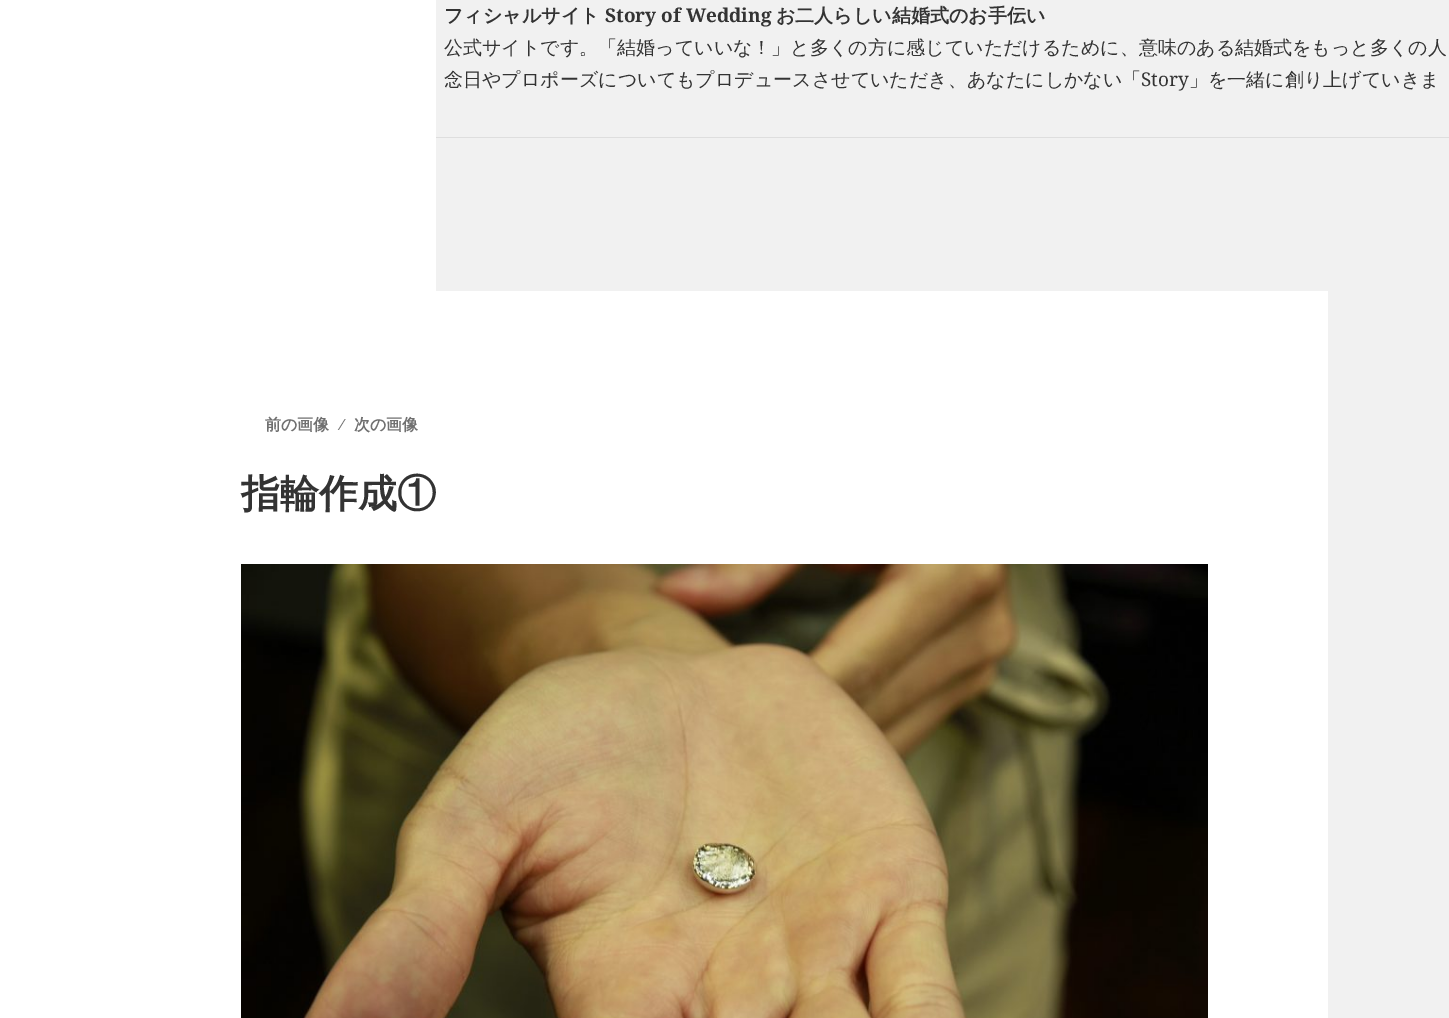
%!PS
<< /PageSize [1449 1018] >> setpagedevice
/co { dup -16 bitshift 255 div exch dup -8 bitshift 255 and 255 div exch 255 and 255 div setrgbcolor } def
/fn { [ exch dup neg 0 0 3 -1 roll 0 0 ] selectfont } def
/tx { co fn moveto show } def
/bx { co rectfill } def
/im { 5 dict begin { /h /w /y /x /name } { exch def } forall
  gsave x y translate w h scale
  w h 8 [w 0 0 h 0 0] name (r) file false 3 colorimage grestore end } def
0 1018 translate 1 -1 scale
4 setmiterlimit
0 0 1449 1018 16#F1F1F1 bx
0 0 436 1018 16#FFFFFF bx
436 137 1013 1 16#DEDEDE bx
436 291 892 727 16#FFFFFF bx
(media/1.raw) 241 564 967 454 im
(フィシャルサイト) 444 22 /WenQuanYiZenHei-Bold 19 16#333333 tx
(Story of Wedding) 605 22 /NotoSerif-Bold 19 16#333333 tx
(お二人らしい結婚式のお手伝い) 776 22 /WenQuanYiZenHei-Bold 19 16#333333 tx
(公式サイトです。「結婚っていいな！」と多くの方に感じていただけるために、意味のある結婚式をもっと多くの人) 444 54 /WenQuanYiZenHei-Medium 19 16#333333 tx
(念日やプロポーズについてもプロデュースさせていただき、あなたにしかない「) 444 86 /WenQuanYiZenHei-Medium 19 16#333333 tx
(Story) 1141 86 /NotoSerif-Regular 19 16#333333 tx
(」を一緒に創り上げていきま) 1189 86 /WenQuanYiZenHei-Medium 19 16#333333 tx
(前の画像) 265 430 /WenQuanYiZenHei-Bold 16 16#707070 tx
(∕) 341 430 /LiberationSans-Regular 16 16#707070 tx
(次の画像) 354 430 /WenQuanYiZenHei-Bold 16 16#707070 tx
(指輪作成①) 241 507 /WenQuanYiZenHei-Bold 39 16#333333 tx
showpage
